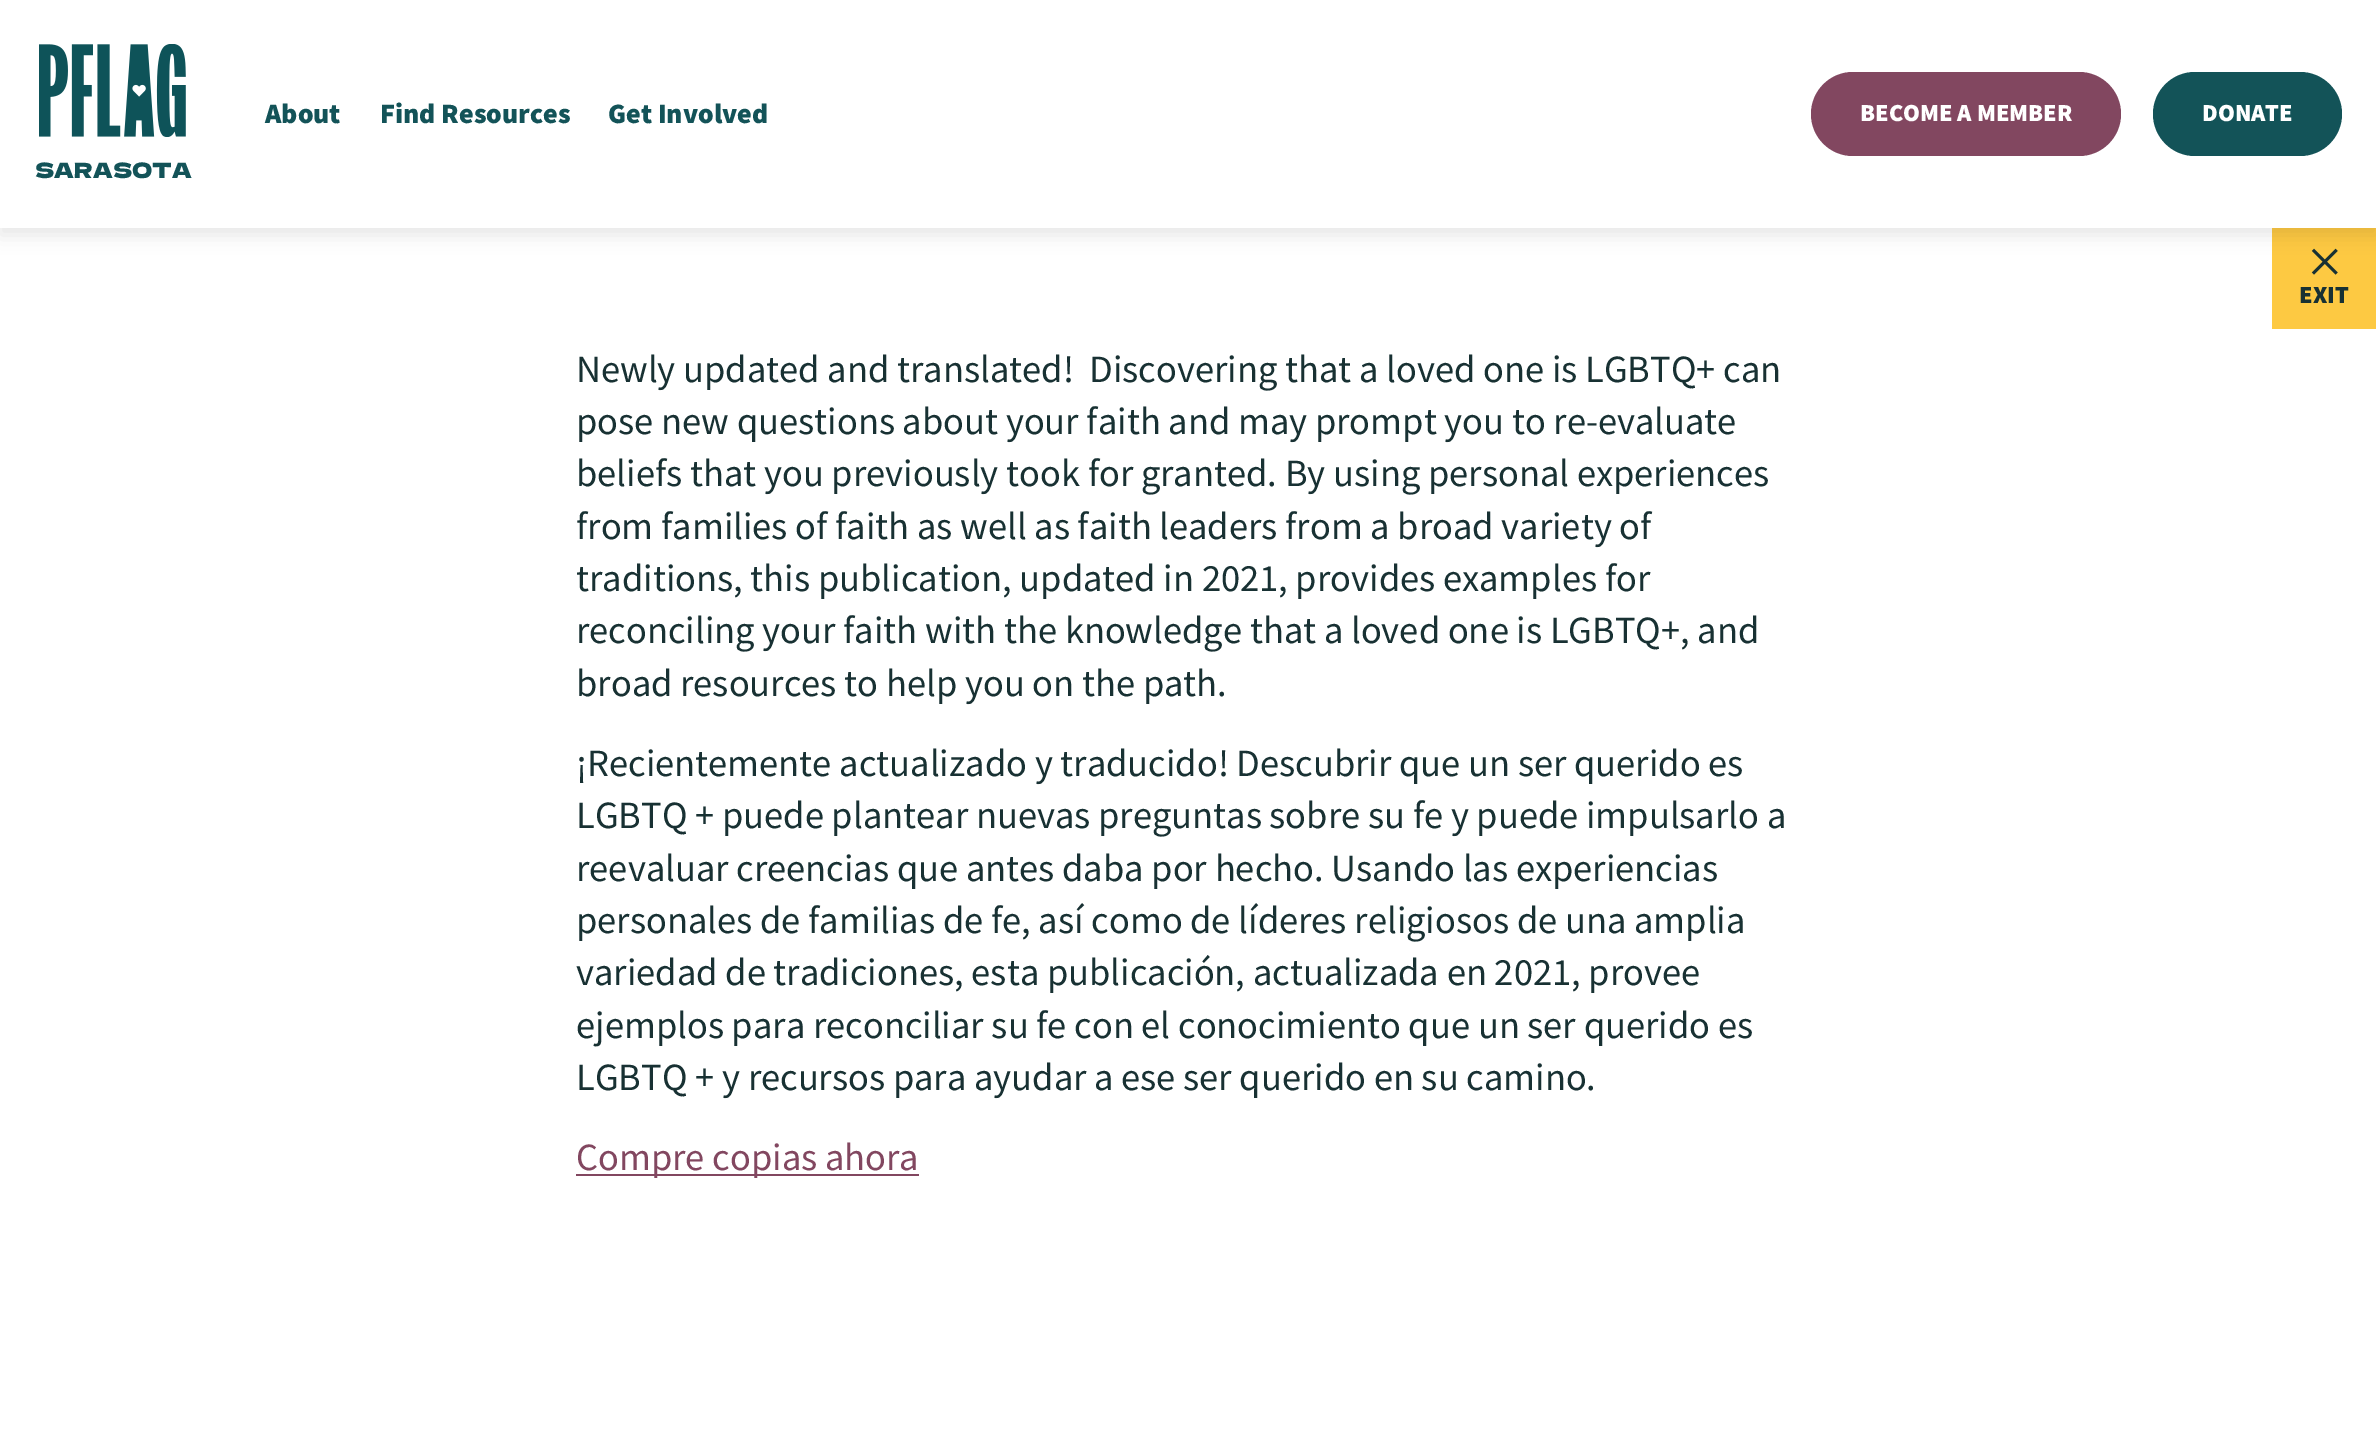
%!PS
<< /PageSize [2376 1449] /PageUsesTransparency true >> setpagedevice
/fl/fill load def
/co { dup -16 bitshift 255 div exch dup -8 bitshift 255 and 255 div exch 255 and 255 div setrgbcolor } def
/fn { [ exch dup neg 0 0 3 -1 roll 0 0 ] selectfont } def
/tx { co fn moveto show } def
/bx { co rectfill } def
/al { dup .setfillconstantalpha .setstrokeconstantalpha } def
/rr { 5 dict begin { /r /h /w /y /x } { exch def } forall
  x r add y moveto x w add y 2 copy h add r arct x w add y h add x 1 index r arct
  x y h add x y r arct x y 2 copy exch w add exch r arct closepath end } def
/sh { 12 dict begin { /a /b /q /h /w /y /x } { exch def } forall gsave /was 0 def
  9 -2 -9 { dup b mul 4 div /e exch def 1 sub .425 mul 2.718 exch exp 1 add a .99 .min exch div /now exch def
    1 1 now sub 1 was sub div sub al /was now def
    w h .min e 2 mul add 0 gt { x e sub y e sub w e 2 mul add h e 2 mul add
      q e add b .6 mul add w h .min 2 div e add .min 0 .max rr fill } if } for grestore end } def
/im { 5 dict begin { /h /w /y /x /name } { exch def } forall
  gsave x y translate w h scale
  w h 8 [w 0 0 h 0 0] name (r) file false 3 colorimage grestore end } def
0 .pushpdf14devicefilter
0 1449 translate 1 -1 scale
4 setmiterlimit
0 0 2376 1449 16#FFFFFF bx
2272 228 104 101 16#FDC942 bx
(media/2.raw) 2311 248 27 27 im
16#000000 co
0 7 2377 228 0 9 .1 sh
0 0 2376 228 16#FFFFFF bx
(media/1.raw) 39 44 147 93 im
16#824760 co
1811 72 310 84 42 rr fl
16#135358 co
2153 72 189 84 42 rr fl
576 1174 343 2 16#824760 bx
(About) 265 123 /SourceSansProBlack-Black 28 16#135358 tx
(Find Resources) 380 123 /SourceSansProBlack-Black 28 16#135358 tx
(Get Involved) 608 123 /SourceSansProBlack-Black 28 16#135358 tx
(SARASOTA) 35 178 /DelaGothicOne-Regular 21 16#135358 tx
(BECOME A MEMBER) 1860 121 /SourceSansProBlack-Black 24.5 16#FFFFFF tx
(DONATE) 2202 121 /SourceSansProBlack-Black 24.5 16#FFFFFF tx
(EXIT) 2299 303 /SourceSansProBlack-Black 24.5 16#183133 tx
(Newly updated and translated!  Discovering that a loved one is LGBTQ+ can) 576 382 /SourceSansPro-Regular 38.5 16#183133 tx
(pose new questions about your faith and may prompt you to re-evaluate) 576 434 /SourceSansPro-Regular 38.5 16#183133 tx
(beliefs that you previously took for granted. By using personal experiences) 576 486 /SourceSansPro-Regular 38.5 16#183133 tx
(from families of faith as well as faith leaders from a broad variety of) 576 539 /SourceSansPro-Regular 38.5 16#183133 tx
(traditions, this publication, updated in 2021, provides examples for) 576 591 /SourceSansPro-Regular 38.5 16#183133 tx
(reconciling your faith with the knowledge that a loved one is LGBTQ+, and) 576 643 /SourceSansPro-Regular 38.5 16#183133 tx
(broad resources to help you on the path.) 576 696 /SourceSansPro-Regular 38.5 16#183133 tx
(¡Recientemente actualizado y traducido! Descubrir que un ser querido es) 576 776 /SourceSansPro-Regular 38.5 16#183133 tx
(LGBTQ + puede plantear nuevas preguntas sobre su fe y puede impulsarlo a) 576 828 /SourceSansPro-Regular 38.5 16#183133 tx
(reevaluar creencias que antes daba por hecho. Usando las experiencias) 576 881 /SourceSansPro-Regular 38.5 16#183133 tx
(personales de familias de fe, así como de líderes religiosos de una amplia) 576 933 /SourceSansPro-Regular 38.5 16#183133 tx
(variedad de tradiciones, esta publicación, actualizada en 2021, provee) 576 985 /SourceSansPro-Regular 38.5 16#183133 tx
(ejemplos para reconciliar su fe con el conocimiento que un ser querido es) 576 1038 /SourceSansPro-Regular 38.5 16#183133 tx
(LGBTQ + y recursos para ayudar a ese ser querido en su camino.) 576 1090 /SourceSansPro-Regular 38.5 16#183133 tx
(Compre copias ahora) 576 1170 /SourceSansPro-Regular 38.5 16#824760 tx
.poppdf14devicefilter showpage
